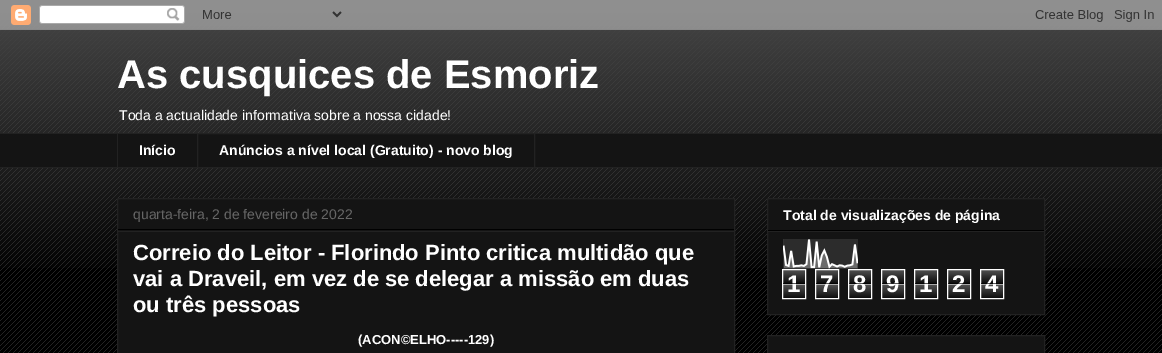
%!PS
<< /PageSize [1162 353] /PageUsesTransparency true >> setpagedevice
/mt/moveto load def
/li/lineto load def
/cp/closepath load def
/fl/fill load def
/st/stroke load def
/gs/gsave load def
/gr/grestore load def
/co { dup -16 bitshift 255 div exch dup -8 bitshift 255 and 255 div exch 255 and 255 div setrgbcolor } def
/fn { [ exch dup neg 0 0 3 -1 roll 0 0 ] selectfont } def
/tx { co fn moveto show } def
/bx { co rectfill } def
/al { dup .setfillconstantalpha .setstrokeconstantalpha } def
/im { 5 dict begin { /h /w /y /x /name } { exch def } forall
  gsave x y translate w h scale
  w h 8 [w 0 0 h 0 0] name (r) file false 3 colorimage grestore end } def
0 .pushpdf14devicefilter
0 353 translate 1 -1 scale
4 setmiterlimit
0 0 1162 353 16#000000 bx
(media/1.raw) 0 13 1162 340 im
(media/2.raw) 0 0 1162 268 im
(media/3.raw) 0 0 1162 30 im
0 134 1162 33 16#141414 bx
0 133 1162 1 16#222222 bx
117 133 1 35 16#222222 bx
197.5 133.5 337 34 rectstroke
0 167 1162 1 16#222222 bx
16#141414 co
117.5 198.5 mt 734.5 198.5 li 734.5 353.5 li 117.5 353.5 li cp gs fl gr
16#222222 co
st
118 229 616 1 16#000000 bx
118 231 616 1 16#222222 bx
16#141414 co
767.5 198.5 mt 1044.5 198.5 li 1044.5 314.5 li 767.5 314.5 li cp gs fl gr
16#222222 co
st
768 230 276 1 16#000000 bx
768 231 276 1 16#222222 bx
(media/4.raw) 783 239 75 30 im
(media/5.raw) 783 270 22 28 im
16#FFFFFF co
782.5 269.5 23 29 rectstroke
(media/5.raw) 816 270 22 28 im
815.5 269.5 23 29 rectstroke
(media/5.raw) 849 270 22 28 im
848.5 269.5 23 29 rectstroke
(media/5.raw) 882 270 22 28 im
881.5 269.5 23 29 rectstroke
(media/5.raw) 915 270 22 28 im
914.5 269.5 23 29 rectstroke
(media/5.raw) 948 270 22 28 im
947.5 269.5 23 29 rectstroke
(media/5.raw) 981 270 22 28 im
980.5 269.5 23 29 rectstroke
16#141414 co
767.5 335.5 mt 1044.5 335.5 li 1044.5 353.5 li 767.5 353.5 li cp gs fl gr
16#222222 co
st
(As cusquices de Esmoriz) 117 88 /LiberationSans-Bold 40 16#FFFFFF tx
(Toda a actualidade informativa sobre a nossa cidade!) 119 120 /LiberationSans-Regular 14 16#FFFFFF tx
(Início) 139 155 /LiberationSans-Bold 14 16#FFFFFF tx
(Anúncios a nível local \(Gratuito\) - novo blog) 219 155 /LiberationSans-Bold 14 16#FFFFFF tx
(quarta-feira, 2 de fevereiro de 2022) 133 219 /LiberationSans-Regular 14 16#666666 tx
(Correio do Leitor - Florindo Pinto critica multidão que) 133 260 /LiberationSans-Bold 22 16#FFFFFF tx
(vai a Draveil, em vez de se delegar a missão em duas) 133 286 /LiberationSans-Bold 22 16#FFFFFF tx
(ou três pessoas) 133 312 /LiberationSans-Bold 22 16#FFFFFF tx
(\(ACON©ELHO-----129\)) 358 344 /LiberationSans-Bold 13 16#FFFFFF tx
(Total de visualizações de página) 783 220 /LiberationSans-Bold 14 16#FFFFFF tx
(1) 787 292 /LiberationSans-Bold 24 16#FFFFFF tx
0.65 al
783 283 22 1 16#000000 bx
783 284 22 1 16#FFFFFF bx
1 al
(7) 820 292 /LiberationSans-Bold 24 16#FFFFFF tx
0.65 al
816 283 22 1 16#000000 bx
816 284 22 1 16#FFFFFF bx
1 al
(8) 853 292 /LiberationSans-Bold 24 16#FFFFFF tx
0.65 al
849 283 22 1 16#000000 bx
849 284 22 1 16#FFFFFF bx
1 al
(9) 886 292 /LiberationSans-Bold 24 16#FFFFFF tx
0.65 al
882 283 22 1 16#000000 bx
882 284 22 1 16#FFFFFF bx
1 al
(1) 919 292 /LiberationSans-Bold 24 16#FFFFFF tx
0.65 al
915 283 22 1 16#000000 bx
915 284 22 1 16#FFFFFF bx
1 al
(2) 952 292 /LiberationSans-Bold 24 16#FFFFFF tx
0.65 al
948 283 22 1 16#000000 bx
948 284 22 1 16#FFFFFF bx
1 al
(4) 985 292 /LiberationSans-Bold 24 16#FFFFFF tx
0.65 al
981 283 22 1 16#000000 bx
981 284 22 1 16#FFFFFF bx
.poppdf14devicefilter showpage
